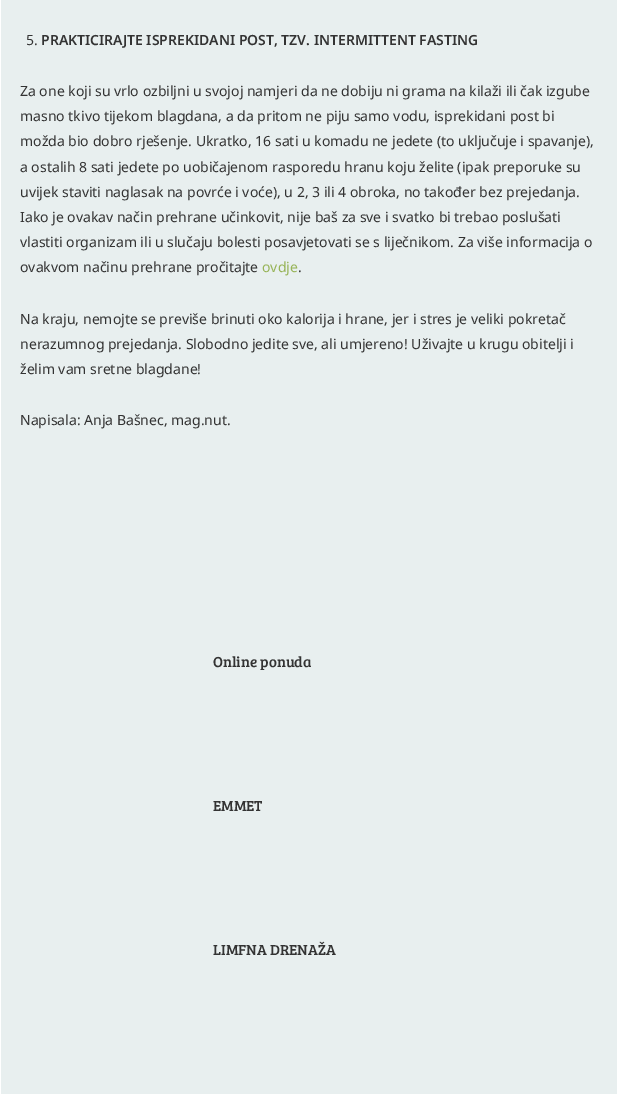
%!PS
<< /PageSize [617 1094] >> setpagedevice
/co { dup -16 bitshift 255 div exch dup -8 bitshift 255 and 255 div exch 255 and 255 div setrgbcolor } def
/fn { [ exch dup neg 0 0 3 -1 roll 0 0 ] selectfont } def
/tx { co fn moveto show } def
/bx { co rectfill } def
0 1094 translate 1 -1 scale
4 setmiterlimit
0 0 617 1094 16#FFFFFF bx
1 0 616 1094 16#E8EFEF bx
(5.) 26 45 /NotoSans-Regular 14 16#333333 tx
(PRAKTICIRAJTE ISPREKIDANI POST, TZV. INTERMITTENT FASTING) 41 45 /NotoSans-SemiBold 14 16#333333 tx
(Za one koji su vrlo ozbiljni u svojoj namjeri da ne dobiju ni grama na kilaži ili čak izgube) 20 96 /NotoSans-Regular 14 16#333333 tx
(masno tkivo tijekom blagdana, a da pritom ne piju samo vodu, isprekidani post bi) 20 121 /NotoSans-Regular 14 16#333333 tx
(možda bio dobro rješenje. Ukratko, 16 sati u komadu ne jedete \(to uključuje i spavanje\),) 20 146 /NotoSans-Regular 14 16#333333 tx
(a ostalih 8 sati jedete po uobičajenom rasporedu hranu koju želite \(ipak preporuke su) 20 172 /NotoSans-Regular 14 16#333333 tx
(uvijek staviti naglasak na povrće i voće\), u 2, 3 ili 4 obroka, no također bez prejedanja.) 20 197 /NotoSans-Regular 14 16#333333 tx
(Iako je ovakav način prehrane učinkovit, nije baš za sve i svatko bi trebao poslušati) 20 222 /NotoSans-Regular 14 16#333333 tx
(vlastiti organizam ili u slučaju bolesti posavjetovati se s liječnikom. Za više informacija o) 20 247 /NotoSans-Regular 14 16#333333 tx
(ovakvom načinu prehrane pročitajte) 20 272 /NotoSans-Regular 14 16#333333 tx
(ovdje) 262 272 /NotoSans-Regular 14 16#97B457 tx
(.) 298 272 /NotoSans-Regular 14 16#333333 tx
(Na kraju, nemojte se previše brinuti oko kalorija i hrane, jer i stres je veliki pokretač) 20 324 /NotoSans-Regular 14 16#333333 tx
(nerazumnog prejedanja. Slobodno jedite sve, ali umjereno! Uživajte u krugu obitelji i) 20 349 /NotoSans-Regular 14 16#333333 tx
(želim vam sretne blagdane!) 20 374 /NotoSans-Regular 14 16#333333 tx
(Napisala: Anja Bašnec, mag.nut.) 20 425 /NotoSans-Regular 14 16#333333 tx
(Online ponuda) 213 667 /BreeSerif-Regular 15 16#333333 tx
(EMMET) 213 811 /BreeSerif-Regular 15 16#333333 tx
(LIMFNA DRENAŽA) 213 955 /BreeSerif-Regular 15 16#333333 tx
showpage
